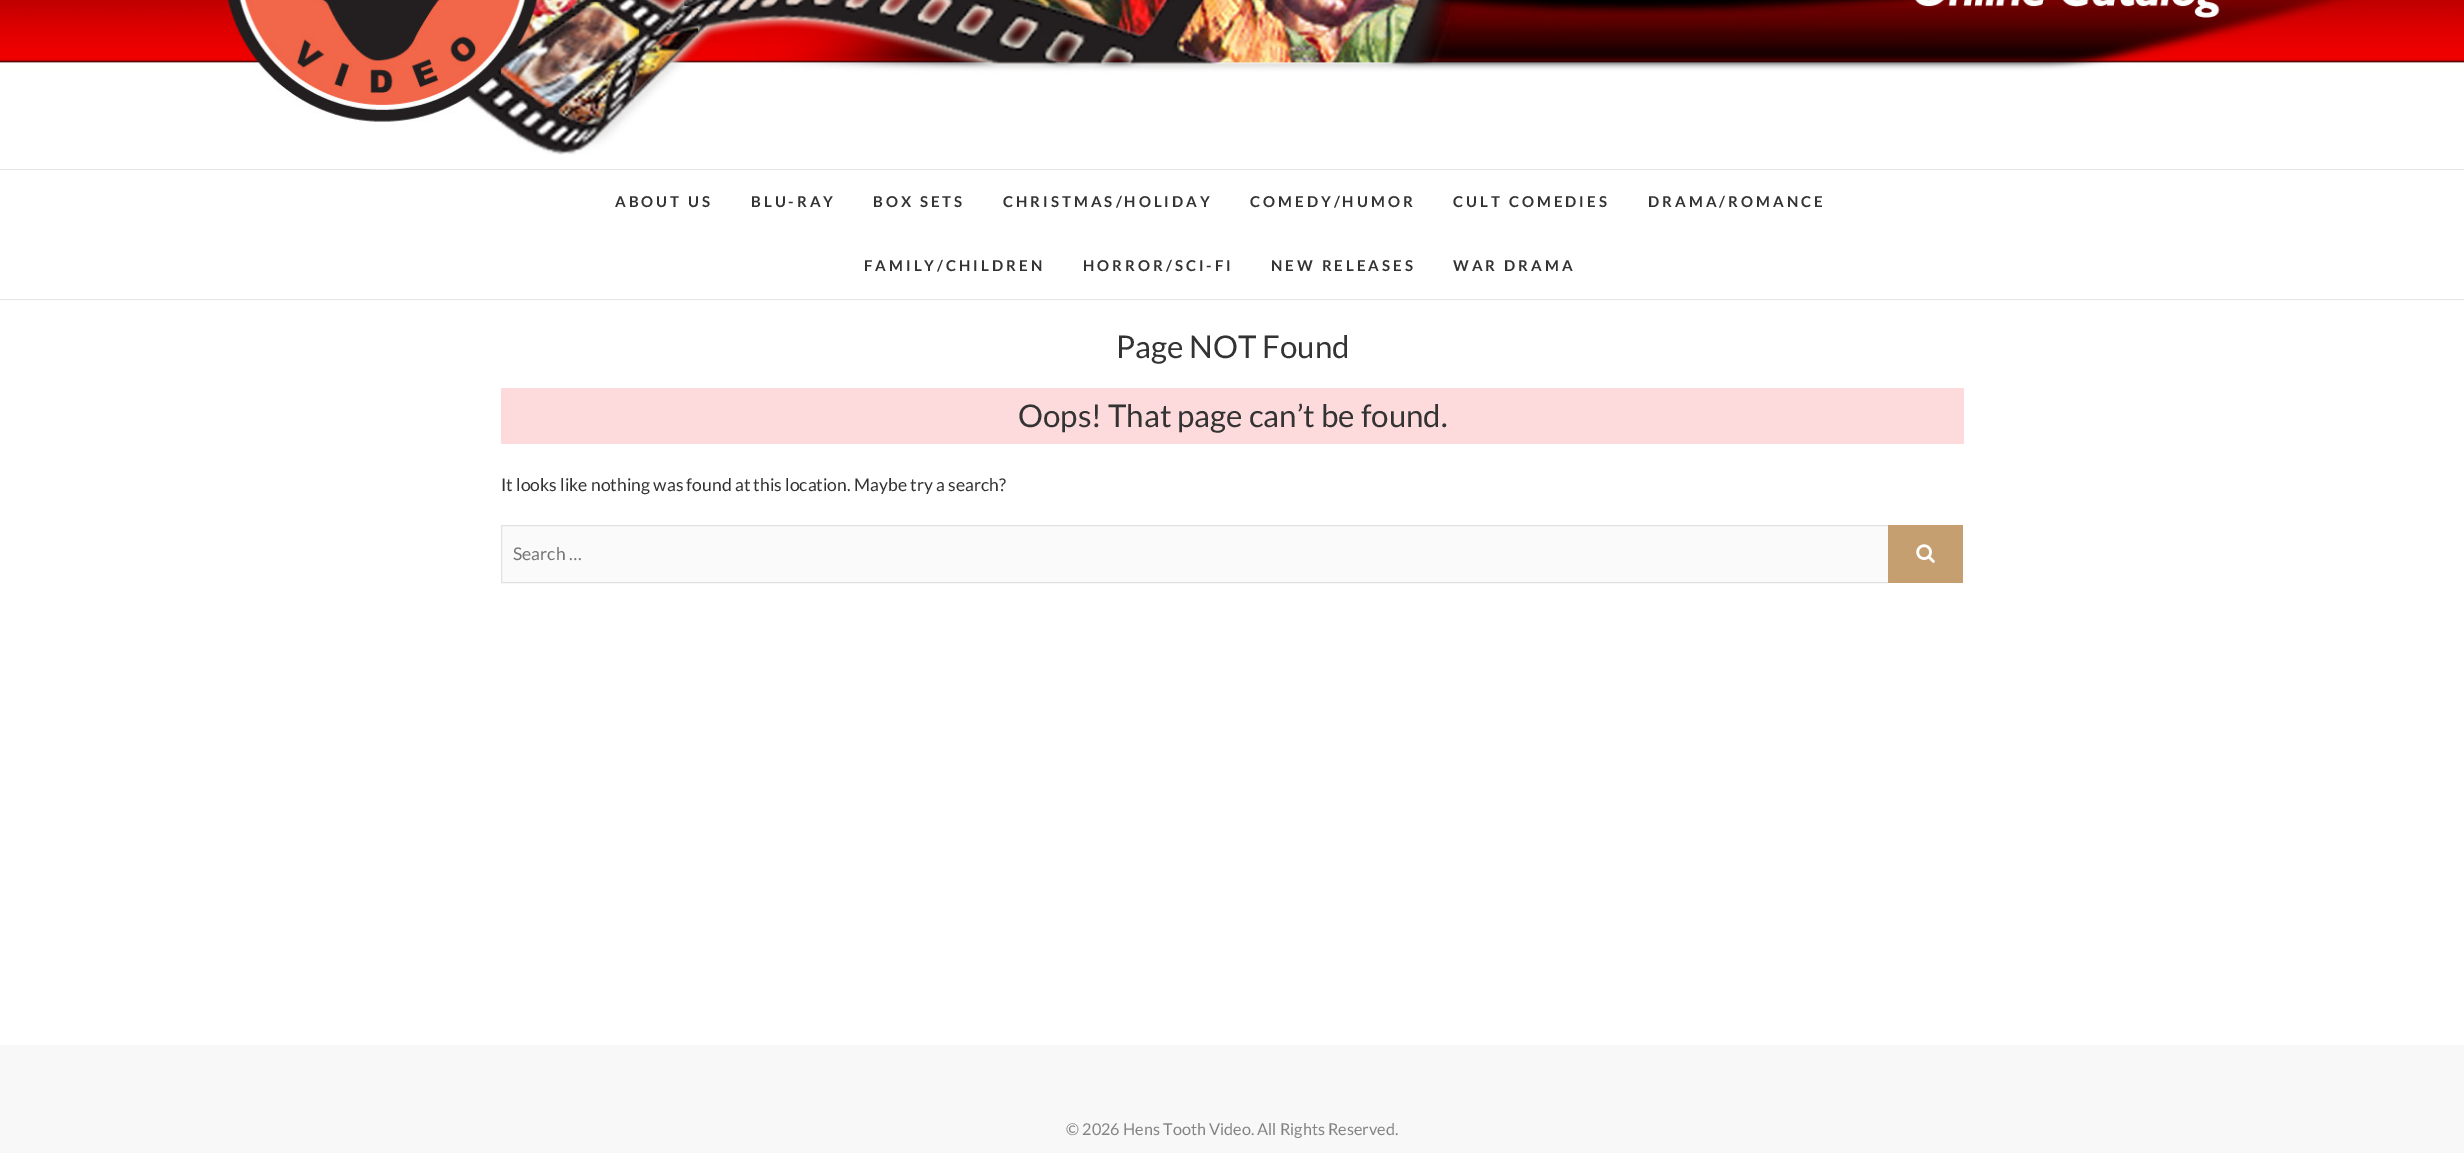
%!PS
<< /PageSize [2464 1153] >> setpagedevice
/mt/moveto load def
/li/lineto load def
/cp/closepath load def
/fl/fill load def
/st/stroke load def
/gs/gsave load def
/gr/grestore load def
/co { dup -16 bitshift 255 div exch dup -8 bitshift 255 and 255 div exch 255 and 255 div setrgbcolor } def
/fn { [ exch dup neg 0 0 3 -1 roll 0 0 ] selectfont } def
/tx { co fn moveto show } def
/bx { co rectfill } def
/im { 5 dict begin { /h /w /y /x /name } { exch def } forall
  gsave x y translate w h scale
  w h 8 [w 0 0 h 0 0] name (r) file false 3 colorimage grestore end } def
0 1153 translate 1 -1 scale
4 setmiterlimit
0 0 2464 1153 16#FFFFFF bx
(media/1.raw) 0 0 2464 155 im
0 169 2464 1 16#E6E6E6 bx
0 299 2464 1 16#E6E6E6 bx
501 388 1463 56 16#FDDBDD bx
16#FAFAFA co
501.5 525.5 mt 1888.5 525.5 li 1888.5 582.5 li 501.5 582.5 li cp gs fl gr
16#E1E1E1 co
st
1888 525 75 58 16#C69F70 bx
(media/2.raw) 1916 544 19 19 im
0 1045 2464 108 16#F8F8F8 bx
/Lato-Bold 15 fn
16#333333 co
615 207 mt 3 0 (ABOUT US) ashow
751 207 mt 3 0 (BLU-RAY) ashow
873 207 mt 3 0 (BOX SETS) ashow
1003 207 mt 3 0 (CHRISTMAS/HOLIDAY) ashow
1250 207 mt 3 0 (COMEDY/HUMOR) ashow
1453 207 mt 3 0 (CULT COMEDIES) ashow
1648 207 mt 3 0 (DRAMA/ROMANCE) ashow
864 271 mt 3 0 (FAMILY/CHILDREN) ashow
1083 271 mt 3 0 (HORROR/SCI-FI) ashow
1271 271 mt 3 0 (NEW RELEASES) ashow
1453 271 mt 3 0 (WAR DRAMA) ashow
(Page NOT Found) 1116 358 /Lato-Regular 31.25 16#333333 tx
(Oops! That page can’t be found.) 1018 427 /Lato-Regular 31.25 16#333333 tx
(It looks like nothing was found at this location. Maybe try a search?) 501 491 /Lato-Regular 17.5 16#333333 tx
(Search …) 513 560 /Lato-Regular 17.5 16#757575 tx
(© 2026 Hens Tooth Video. All Rights Reserved.) 1066 1135 /Lato-Regular 16.25 16#848484 tx
showpage
